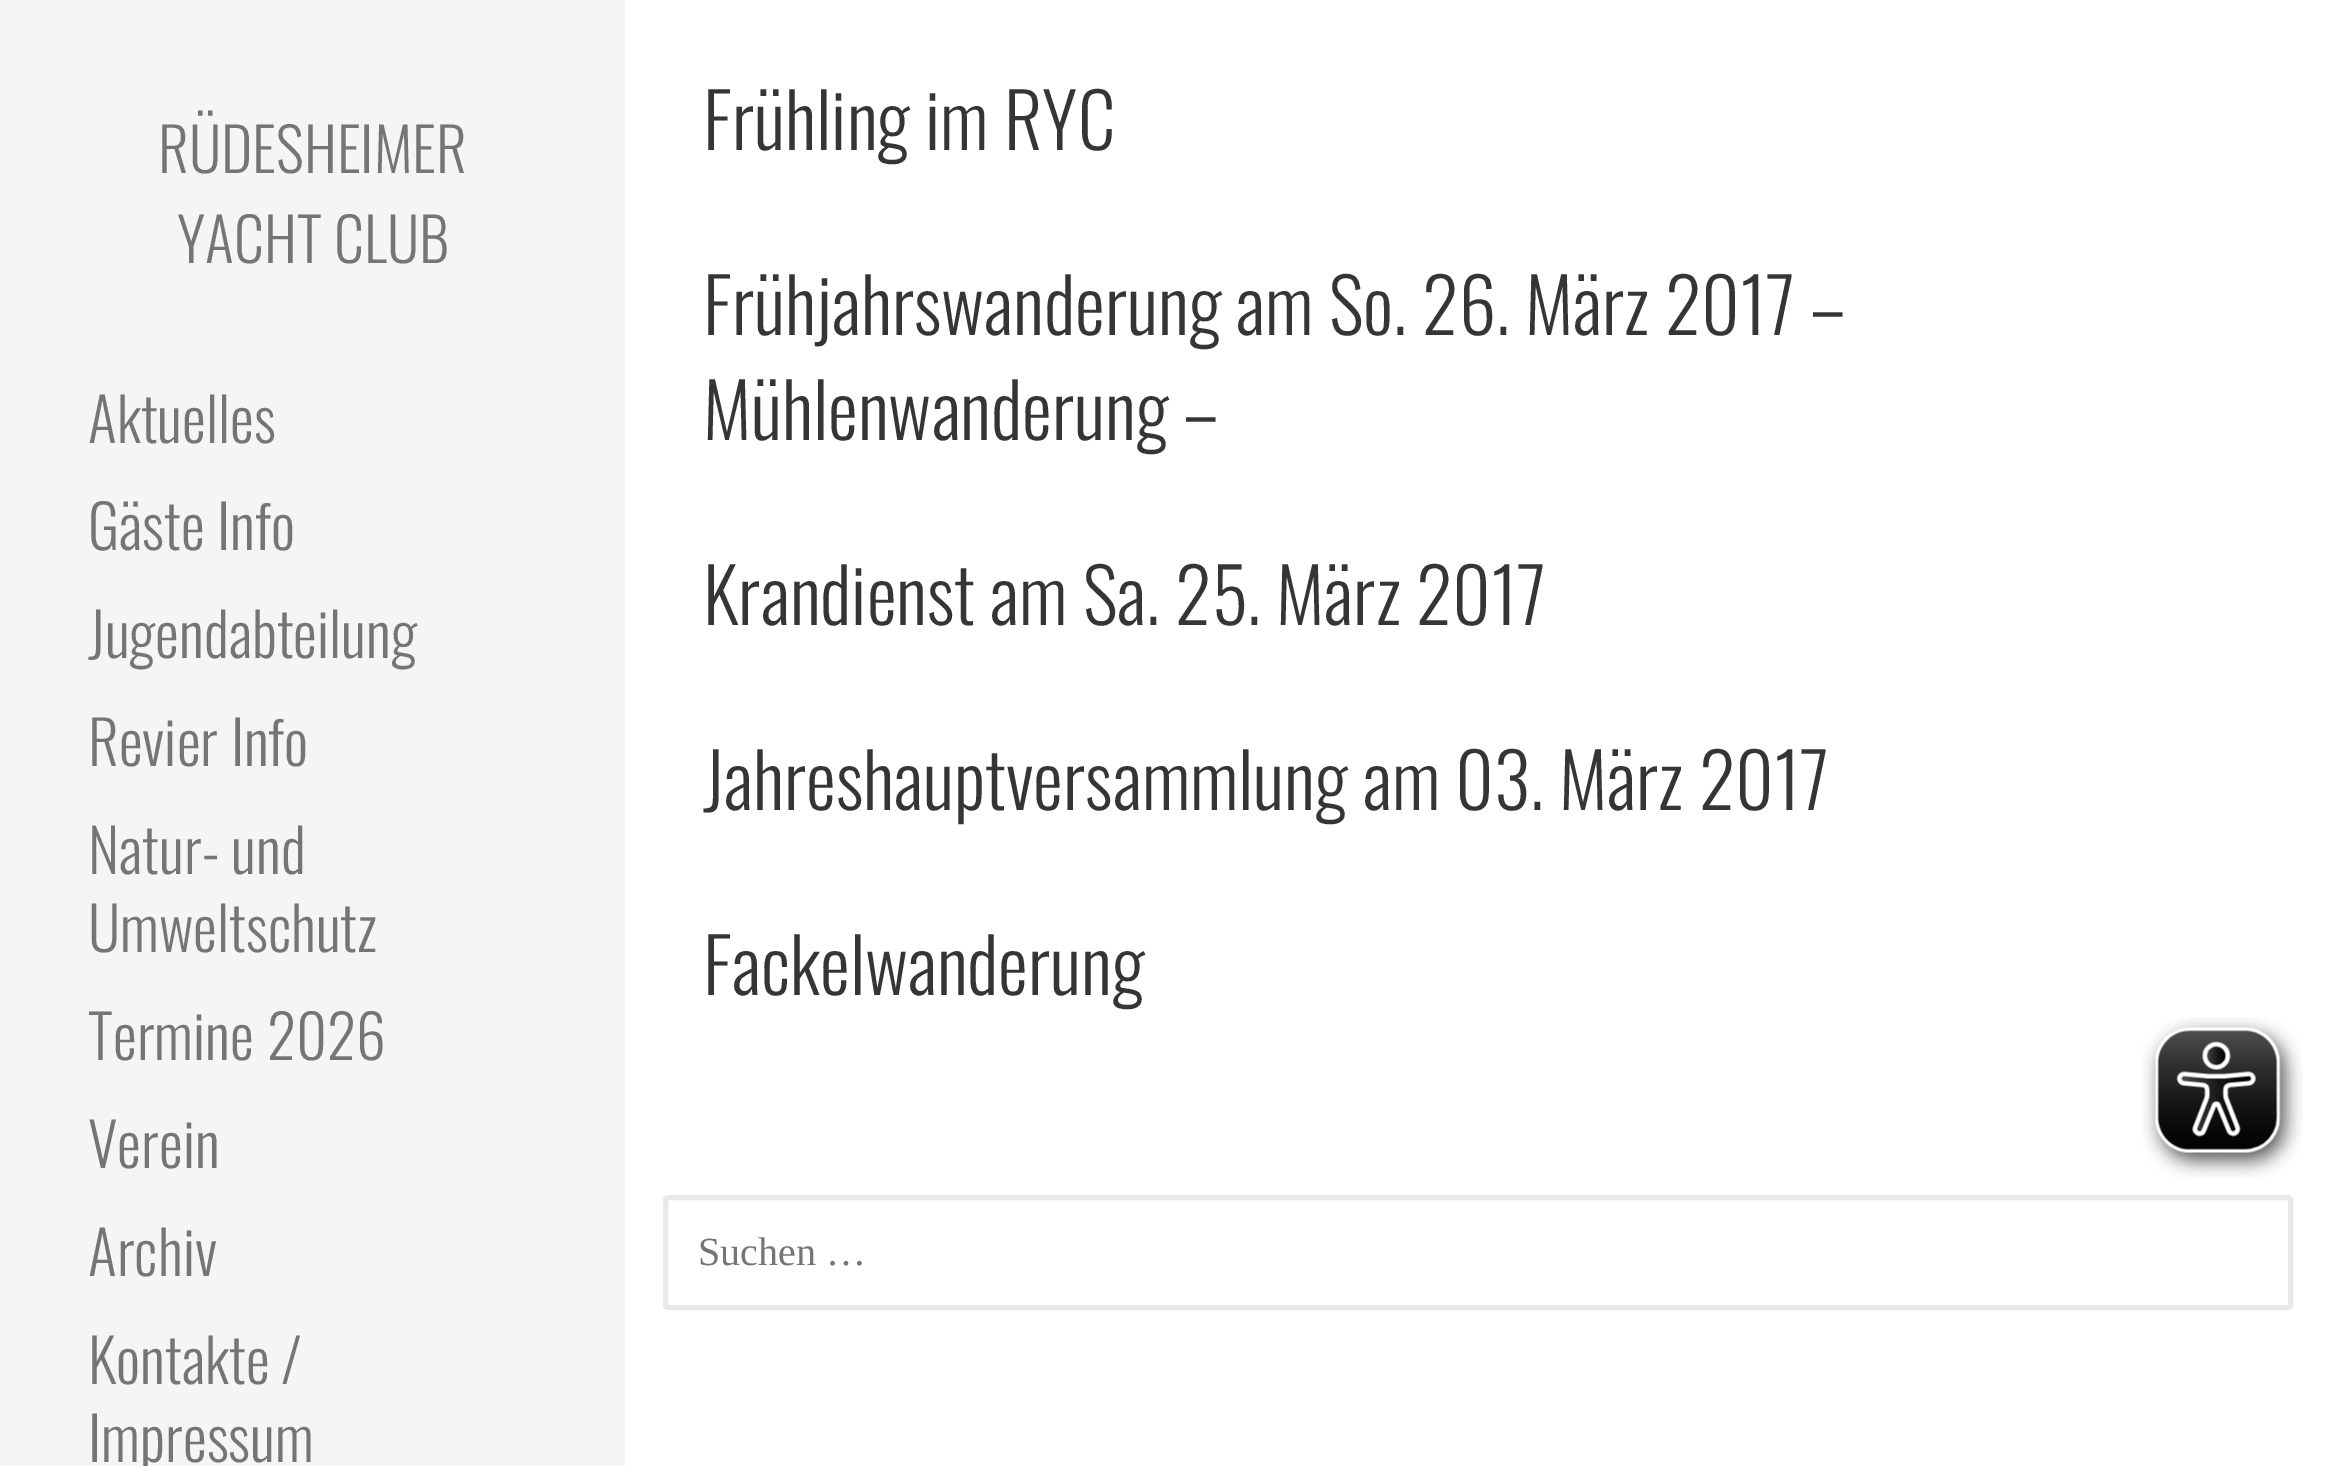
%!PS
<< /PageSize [2328 1466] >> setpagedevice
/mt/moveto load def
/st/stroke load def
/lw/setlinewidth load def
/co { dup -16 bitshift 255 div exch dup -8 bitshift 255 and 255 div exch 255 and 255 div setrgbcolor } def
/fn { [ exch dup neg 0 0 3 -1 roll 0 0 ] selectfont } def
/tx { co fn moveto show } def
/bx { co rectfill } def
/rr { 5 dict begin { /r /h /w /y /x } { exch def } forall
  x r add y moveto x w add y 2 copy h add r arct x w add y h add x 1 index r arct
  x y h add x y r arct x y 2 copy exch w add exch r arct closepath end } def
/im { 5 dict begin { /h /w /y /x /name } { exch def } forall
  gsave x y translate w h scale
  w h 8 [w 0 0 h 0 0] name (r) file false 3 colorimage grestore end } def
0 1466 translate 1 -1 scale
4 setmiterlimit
0 0 2328 1466 16#FFFFFF bx
0 0 625 1466 16#F5F5F5 bx
16#E9E9E9 co
5 lw
665.5 1197.5 1625 110 2.5 rr st
(media/1.raw) 2142 1017 161 161 im
(RÜDESHEIMER) 158 173 /Oswald-Light 60 16#757575 tx
(YACHT CLUB) 177 263 /Oswald-Light 60 16#757575 tx
(Aktuelles) 88 443 /Oswald-Light 60 16#757575 tx
(Gäste Info) 88 550 /Oswald-Light 60 16#757575 tx
(Jugendabteilung) 88 658 /Oswald-Light 60 16#757575 tx
(Revier Info) 88 766 /Oswald-Light 60 16#757575 tx
(Natur- und) 88 874 /Oswald-Light 60 16#757575 tx
(Umweltschutz) 88 952 /Oswald-Light 60 16#757575 tx
88 1060 mt 1 0 32 (Termine 2026) widthshow
(Verein) 88 1168 /Oswald-Light 60 16#757575 tx
(Archiv) 88 1276 /Oswald-Light 60 16#757575 tx
(Kontakte /) 88 1384 /Oswald-Light 60 16#757575 tx
(Impressum) 88 1462 /Oswald-Light 60 16#757575 tx
(Frühling im RYC) 703 150 /Oswald-Light 75 16#353535 tx
(Frühjahrswanderung am So. 26. März 2017 –) 703 335 /Oswald-Light 75 16#353535 tx
(Mühlenwanderung –) 703 440 /Oswald-Light 75 16#353535 tx
(Krandienst am Sa. 25. März 2017) 703 625 /Oswald-Light 75 16#353535 tx
(Jahreshauptversammlung am 03. März 2017) 703 810 /Oswald-Light 75 16#353535 tx
(Fackelwanderung) 703 995 /Oswald-Light 75 16#353535 tx
(Suchen …) 698 1265 /LiberationSerif-Regular 40 16#757575 tx
showpage
